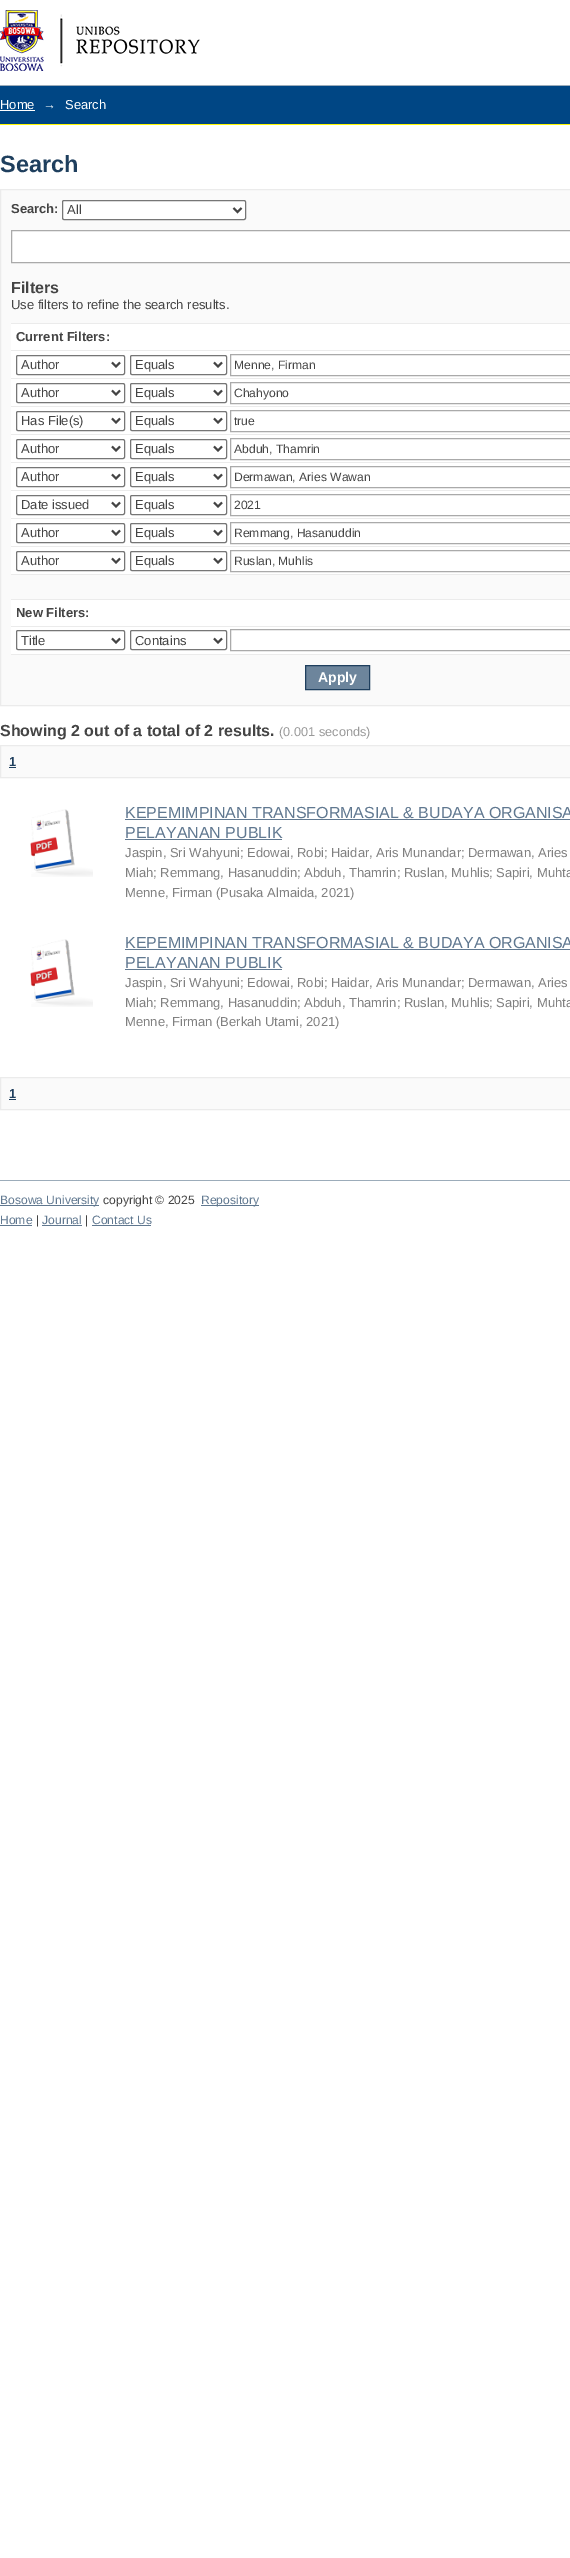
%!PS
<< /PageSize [570 2558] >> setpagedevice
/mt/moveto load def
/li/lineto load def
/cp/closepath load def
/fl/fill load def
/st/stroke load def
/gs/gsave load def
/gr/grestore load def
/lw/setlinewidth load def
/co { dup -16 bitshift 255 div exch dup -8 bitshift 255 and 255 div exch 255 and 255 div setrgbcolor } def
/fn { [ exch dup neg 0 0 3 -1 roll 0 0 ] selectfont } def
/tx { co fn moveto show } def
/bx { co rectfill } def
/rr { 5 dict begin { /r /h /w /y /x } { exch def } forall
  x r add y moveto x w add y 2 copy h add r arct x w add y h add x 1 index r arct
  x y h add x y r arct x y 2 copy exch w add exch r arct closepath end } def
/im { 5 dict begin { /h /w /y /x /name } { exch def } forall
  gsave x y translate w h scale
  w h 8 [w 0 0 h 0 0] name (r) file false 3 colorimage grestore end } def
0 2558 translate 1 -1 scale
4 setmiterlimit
0 0 570 2558 16#FFFFFF bx
(media/1.raw) 0 10 200 61 im
0 86 570 38 16#004684 bx
0 85 570 1 16#9CACBA bx
0 124 570 1 16#FFF700 bx
0 110 35 1 16#FFFFFF bx
16#FAFAFA co
.5 189.5 mt 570.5 189.5 li 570.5 705.5 li .5 705.5 li cp gs fl gr
16#EBEBEB co
st
16#FFFFFF co
62.5 200.5 183 19 1.5 rr gs fl gr
16#767676 co
st
16#444444 co
2 lw
233.5 208 mt 237.5 212 li 241.5 208 li st
16#FFFFFF co
11.5 230.5 mt 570.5 230.5 li 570.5 262.5 li 11.5 262.5 li cp gs fl gr
16#AAAAAA co
1 lw
st
11 324 559 330 16#FFFFFF bx
11 323 559 1 16#EBEBEB bx
11 350 559 1 16#EBEBEB bx
16#767676 co
16.5 355.5 108 19 1.5 rr st
16#444444 co
2 lw
112 362.5 mt 116 366.5 li 120 362.5 li st
16#767676 co
1 lw
130.5 355.5 96 19 1.5 rr st
16#444444 co
2 lw
214 362.5 mt 218 366.5 li 222 362.5 li st
16#AAAAAA co
1 lw
230.5 354.5 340 21 rectstroke
11 378 559 1 16#EBEBEB bx
16#767676 co
16.5 383.5 108 19 1.5 rr st
16#444444 co
2 lw
112 390.5 mt 116 394.5 li 120 390.5 li st
16#767676 co
1 lw
130.5 383.5 96 19 1.5 rr st
16#444444 co
2 lw
214 390.5 mt 218 394.5 li 222 390.5 li st
16#AAAAAA co
1 lw
230.5 382.5 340 21 rectstroke
11 406 559 1 16#EBEBEB bx
16#767676 co
16.5 411.5 108 19 1.5 rr st
16#444444 co
2 lw
112 418.5 mt 116 422.5 li 120 418.5 li st
16#767676 co
1 lw
130.5 411.5 96 19 1.5 rr st
16#444444 co
2 lw
214 418.5 mt 218 422.5 li 222 418.5 li st
16#AAAAAA co
1 lw
230.5 410.5 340 21 rectstroke
11 434 559 1 16#EBEBEB bx
16#767676 co
16.5 439.5 108 19 1.5 rr st
16#444444 co
2 lw
112 446.5 mt 116 450.5 li 120 446.5 li st
16#767676 co
1 lw
130.5 439.5 96 19 1.5 rr st
16#444444 co
2 lw
214 446.5 mt 218 450.5 li 222 446.5 li st
16#AAAAAA co
1 lw
230.5 438.5 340 21 rectstroke
11 462 559 1 16#EBEBEB bx
16#767676 co
16.5 467.5 108 19 1.5 rr st
16#444444 co
2 lw
112 474.5 mt 116 478.5 li 120 474.5 li st
16#767676 co
1 lw
130.5 467.5 96 19 1.5 rr st
16#444444 co
2 lw
214 474.5 mt 218 478.5 li 222 474.5 li st
16#AAAAAA co
1 lw
230.5 466.5 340 21 rectstroke
11 490 559 1 16#EBEBEB bx
16#767676 co
16.5 495.5 108 19 1.5 rr st
16#444444 co
2 lw
112 502.5 mt 116 506.5 li 120 502.5 li st
16#767676 co
1 lw
130.5 495.5 96 19 1.5 rr st
16#444444 co
2 lw
214 502.5 mt 218 506.5 li 222 502.5 li st
16#AAAAAA co
1 lw
230.5 494.5 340 21 rectstroke
11 518 559 1 16#EBEBEB bx
16#767676 co
16.5 523.5 108 19 1.5 rr st
16#444444 co
2 lw
112 530.5 mt 116 534.5 li 120 530.5 li st
16#767676 co
1 lw
130.5 523.5 96 19 1.5 rr st
16#444444 co
2 lw
214 530.5 mt 218 534.5 li 222 530.5 li st
16#AAAAAA co
1 lw
230.5 522.5 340 21 rectstroke
11 546 559 1 16#EBEBEB bx
16#767676 co
16.5 551.5 108 19 1.5 rr st
16#444444 co
2 lw
112 558.5 mt 116 562.5 li 120 558.5 li st
16#767676 co
1 lw
130.5 551.5 96 19 1.5 rr st
16#444444 co
2 lw
214 558.5 mt 218 562.5 li 222 558.5 li st
16#AAAAAA co
1 lw
230.5 550.5 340 21 rectstroke
11 575 559 24 16#FAFAFA bx
11 574 559 1 16#EBEBEB bx
11 599 559 1 16#EBEBEB bx
11 626 559 1 16#EBEBEB bx
16#767676 co
16.5 630.5 108 19 1.5 rr st
16#444444 co
2 lw
112 638.5 mt 116 642.5 li 120 638.5 li st
16#767676 co
1 lw
130.5 630.5 96 19 1.5 rr st
16#444444 co
2 lw
214 638.5 mt 218 642.5 li 222 638.5 li st
16#AAAAAA co
1 lw
230.5 629.5 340 21 rectstroke
11 654 559 1 16#EBEBEB bx
16#6D859C co
305.5 665.5 mt 369.5 665.5 li 369.5 689.5 li 305.5 689.5 li cp gs fl gr
16#1F3F5E co
st
16#FAFAFA co
.5 745.5 mt 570.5 745.5 li 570.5 777.5 li .5 777.5 li cp gs fl gr
16#EBEBEB co
st
9 767 7 1 16#1F3F5E bx
(media/2.raw) 30 809 63 68 im
125 819 445 1 16#607890 bx
125 839 157 1 16#607890 bx
(media/2.raw) 30 939 63 68 im
125 949 445 1 16#607890 bx
125 969 157 1 16#607890 bx
16#FAFAFA co
.5 1077.5 mt 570.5 1077.5 li 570.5 1109.5 li .5 1109.5 li cp gs fl gr
16#EBEBEB co
st
9 1099 7 1 16#1F3F5E bx
0 1180 570 1 16#9CACBA bx
0 1205 99 1 16#607890 bx
201 1205 58 1 16#607890 bx
0 1225 32 1 16#607890 bx
42 1225 40 1 16#607890 bx
92 1225 59 1 16#607890 bx
(Home) 0 109 /LiberationSans-Regular 13 16#FFFFFF tx
(→) 43 109 /LiberationSans-Regular 13 16#FFFFFF tx
(Search) 65 109 /LiberationSans-Regular 13 16#FFFFFF tx
(Search) 0 172 /LiberationSans-Bold 23.5 16#1F3F5E tx
(Search:) 11 213 /LiberationSans-Bold 13 16#444444 tx
(All) 67 214 /LiberationSans-Regular 13 16#444444 tx
(Filters) 11 293 /LiberationSans-Bold 16 16#444444 tx
(Use filters to refine the search results.) 11 309 /LiberationSans-Regular 13 16#444444 tx
(Current Filters:) 16 341 /LiberationSans-Bold 13 16#444444 tx
(Author) 21 369 /LiberationSans-Regular 13 16#444444 tx
(Equals) 135 369 /LiberationSans-Regular 13 16#444444 tx
(Menne, Firman) 234 369 /LiberationSans-Regular 12.1 16#444444 tx
(Author) 21 397 /LiberationSans-Regular 13 16#444444 tx
(Equals) 135 397 /LiberationSans-Regular 13 16#444444 tx
(Chahyono) 234 397 /LiberationSans-Regular 12.1 16#444444 tx
(Has File\(s\)) 21 425 /LiberationSans-Regular 13 16#444444 tx
(Equals) 135 425 /LiberationSans-Regular 13 16#444444 tx
(true) 234 425 /LiberationSans-Regular 12.1 16#444444 tx
(Author) 21 453 /LiberationSans-Regular 13 16#444444 tx
(Equals) 135 453 /LiberationSans-Regular 13 16#444444 tx
(Abduh, Thamrin) 234 453 /LiberationSans-Regular 12.1 16#444444 tx
(Author) 21 481 /LiberationSans-Regular 13 16#444444 tx
(Equals) 135 481 /LiberationSans-Regular 13 16#444444 tx
(Dermawan, Aries Wawan) 234 481 /LiberationSans-Regular 12.1 16#444444 tx
(Date issued) 21 509 /LiberationSans-Regular 13 16#444444 tx
(Equals) 135 509 /LiberationSans-Regular 13 16#444444 tx
(2021) 234 509 /LiberationSans-Regular 12.1 16#444444 tx
(Author) 21 537 /LiberationSans-Regular 13 16#444444 tx
(Equals) 135 537 /LiberationSans-Regular 13 16#444444 tx
(Remmang, Hasanuddin) 234 537 /LiberationSans-Regular 12.1 16#444444 tx
(Author) 21 565 /LiberationSans-Regular 13 16#444444 tx
(Equals) 135 565 /LiberationSans-Regular 13 16#444444 tx
(Ruslan, Muhlis) 234 565 /LiberationSans-Regular 12.1 16#444444 tx
(New Filters:) 16 617 /LiberationSans-Bold 13 16#444444 tx
(Title) 21 645 /LiberationSans-Regular 13 16#444444 tx
(Contains) 135 645 /LiberationSans-Regular 13 16#444444 tx
(Apply) 318 682 /LiberationSans-Bold 14 16#FFFFFF tx
(Showing 2 out of a total of 2 results.) 0 736 /LiberationSans-Bold 16 16#444444 tx
(\(0.001 seconds\)) 279 736 /LiberationSans-Regular 12.75 16#999999 tx
(1) 9 766 /LiberationSans-Bold 13 16#1F3F5E tx
(KEPEMIMPINAN TRANSFORMASIAL & BUDAYA ORGANISA) 125 818 /LiberationSans-Regular 16 16#607890 tx
(PELAYANAN PUBLIK) 125 838 /LiberationSans-Regular 16 16#607890 tx
(Jaspin, Sri Wahyuni; Edowai, Robi; Haidar, Aris Munandar; Dermawan, Aries) 125 857 /LiberationSans-Regular 13 16#808080 tx
(Miah; Remmang, Hasanuddin; Abduh, Thamrin; Ruslan, Muhlis; Sapiri, Muhta) 125 877 /LiberationSans-Regular 13 16#808080 tx
(Menne, Firman \(Pusaka Almaida, 2021\)) 125 897 /LiberationSans-Regular 13 16#808080 tx
(KEPEMIMPINAN TRANSFORMASIAL & BUDAYA ORGANISA) 125 948 /LiberationSans-Regular 16 16#607890 tx
(PELAYANAN PUBLIK) 125 968 /LiberationSans-Regular 16 16#607890 tx
(Jaspin, Sri Wahyuni; Edowai, Robi; Haidar, Aris Munandar; Dermawan, Aries) 125 987 /LiberationSans-Regular 13 16#808080 tx
(Miah; Remmang, Hasanuddin; Abduh, Thamrin; Ruslan, Muhlis; Sapiri, Muhta) 125 1007 /LiberationSans-Regular 13 16#808080 tx
(Menne, Firman \(Berkah Utami, 2021\)) 125 1026 /LiberationSans-Regular 13 16#808080 tx
(1) 9 1098 /LiberationSans-Bold 13 16#1F3F5E tx
(Bosowa University) 0 1204 /LiberationSans-Regular 12.1 16#607890 tx
(copyright © 2025) 103 1204 /LiberationSans-Regular 12.1 16#444444 tx
(Repository) 201 1204 /LiberationSans-Regular 12.1 16#607890 tx
(Home) 0 1224 /LiberationSans-Regular 12.1 16#607890 tx
(|) 36 1224 /LiberationSans-Regular 12.1 16#444444 tx
(Journal) 42 1224 /LiberationSans-Regular 12.1 16#607890 tx
(|) 85 1224 /LiberationSans-Regular 12.1 16#444444 tx
(Contact Us) 92 1224 /LiberationSans-Regular 12.1 16#607890 tx
showpage
